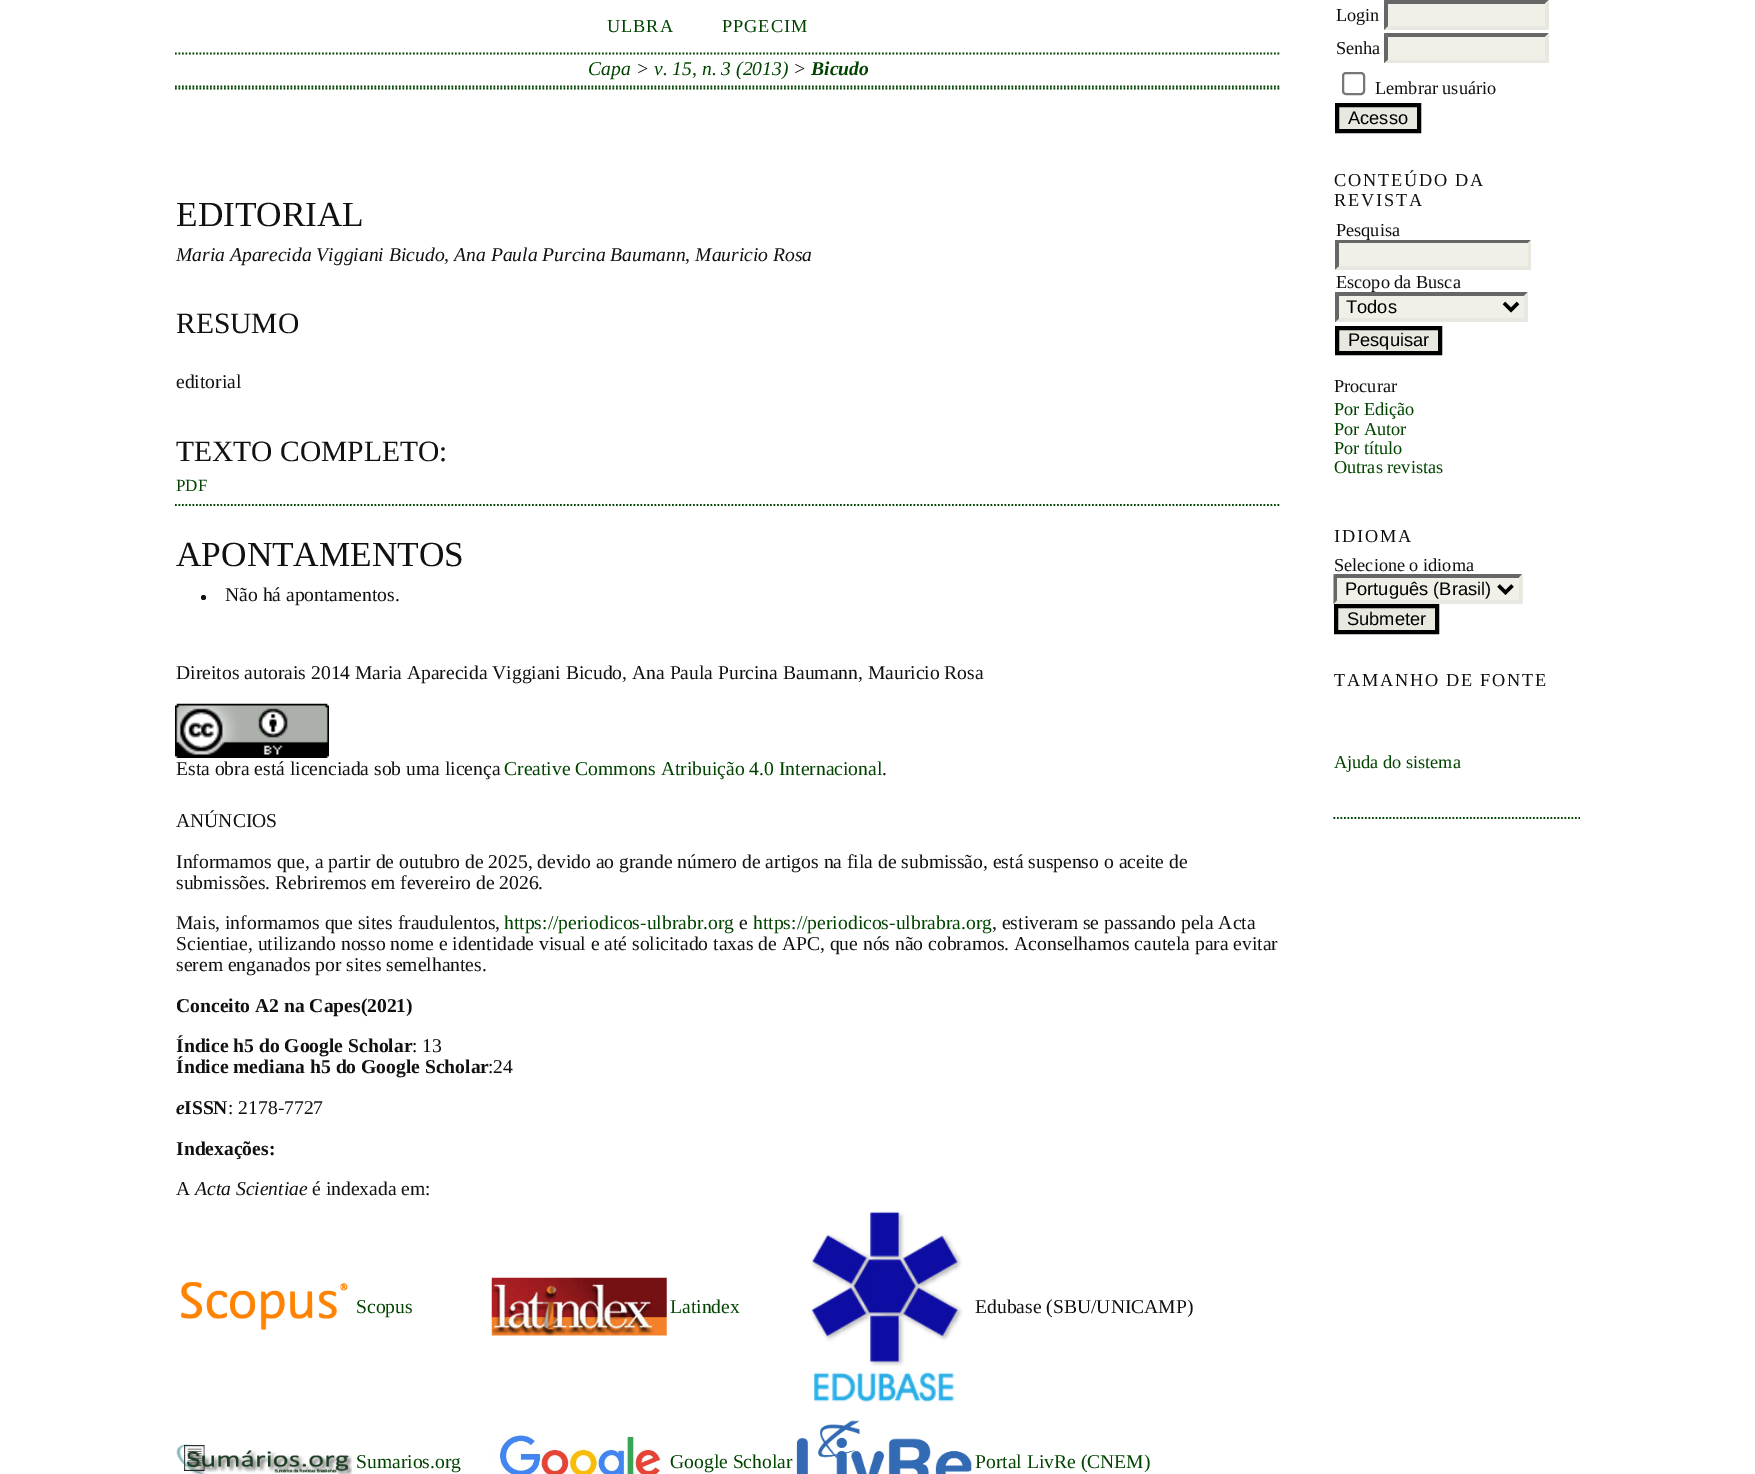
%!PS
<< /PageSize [1755 1474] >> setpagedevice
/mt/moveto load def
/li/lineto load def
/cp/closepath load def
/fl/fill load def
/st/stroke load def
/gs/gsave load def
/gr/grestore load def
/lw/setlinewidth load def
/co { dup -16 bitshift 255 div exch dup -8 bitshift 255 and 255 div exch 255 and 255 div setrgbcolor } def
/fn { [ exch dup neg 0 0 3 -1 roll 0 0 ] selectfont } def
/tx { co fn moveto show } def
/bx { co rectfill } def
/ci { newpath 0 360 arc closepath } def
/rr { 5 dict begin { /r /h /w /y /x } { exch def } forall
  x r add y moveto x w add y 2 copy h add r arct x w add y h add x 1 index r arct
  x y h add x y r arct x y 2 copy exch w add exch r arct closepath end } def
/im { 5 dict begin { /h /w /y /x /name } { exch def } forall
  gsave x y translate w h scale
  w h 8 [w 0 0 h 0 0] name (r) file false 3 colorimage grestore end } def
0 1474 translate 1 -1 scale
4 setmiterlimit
0 0 1755 1474 16#FFFFFF bx
16#004400 co
1.8 lw
[1.75 1.75] 0 setdash
175 53.5 mt 1281 53.5 li st
175 86.5 mt 1281 86.5 li st
175 88.5 mt 1281 88.5 li st
175 505 mt 1281 505 li st
16#111111 co
203.5 597.5 2.5 ci fl
(media/1.raw) 175 703 154 55 im
(media/2.raw) 181 1282 167 48 im
(media/3.raw) 491 1277 176 59 im
(media/4.raw) 811 1211 152 191 im
(media/5.raw) 176 1444 176 30 im
(media/6.raw) 492 1433 171 41 im
(media/7.raw) 796 1420 176 54 im
16#004400 co
1333.5 818 mt 1580 818 li st
1384 0 165 30 16#F0F0E8 bx
16#666666 co
1384 0 mt 1549 0 li 1545 4 li 1388 4 li cp fl
16#E8E8E1 co
1549 0 mt 1549 30 li 1545 26 li 1545 3.5 li cp fl
1549 30 mt 1384 30 li 1388 26 li 1545 26 li cp fl
16#666666 co
1384 30 mt 1384 0 li 1388 3.5 li 1388 26 li cp fl
1384 33 165 30 16#F0F0E8 bx
16#666666 co
1384 33 mt 1549 33 li 1545 37 li 1388 37 li cp fl
16#E8E8E1 co
1549 33 mt 1549 63 li 1545 59.5 li 1545 37 li cp fl
1549 63 mt 1384 63 li 1388 60 li 1545 60 li cp fl
16#666666 co
1384 63 mt 1384 33 li 1388 37 li 1388 59.5 li cp fl
16#767676 co
2 lw
[] 0 setdash
1343 73 21 21 3 rr st
16#E8E8E1 co
1337 105 mt 1419 105 li 1419 131 li 1337 131 li cp gs fl gr
16#000000 co
4 lw
st
1335 240 196 30 16#F0F0E8 bx
16#666666 co
1335 240 mt 1531 240 li 1528 243 li 1339 243 li cp fl
16#E8E8E1 co
1531 240 mt 1531 269.5 li 1528 266 li 1528 243 li cp fl
1531 270 mt 1335 270 li 1339 266 li 1528 266 li cp fl
16#666666 co
1335 269.5 mt 1335 240 li 1339 243 li 1339 266 li cp fl
1335 292 193 30 16#F0F0E8 bx
16#666666 co
1335 292 mt 1528 292 li 1524 296 li 1339 296 li cp fl
16#E8E8E1 co
1528 292 mt 1528 322 li 1524 318.5 li 1524 296 li cp fl
1528 322 mt 1335 322 li 1339 318 li 1524 318 li cp fl
16#666666 co
1335 322 mt 1335 292 li 1339 296 li 1339 318.5 li cp fl
16#000000 co
3.5 lw
1504 303 mt 1511 310 li 1518 303 li st
16#E8E8E1 co
1337 328 mt 1440 328 li 1440 353 li 1337 353 li cp gs fl gr
16#000000 co
4 lw
st
1334 574 189 30 16#F0F0E8 bx
16#666666 co
1334 574 mt 1522 574 li 1519 578 li 1337 578 li cp fl
16#E8E8E1 co
1522.5 574 mt 1522.5 604 li 1519 600 li 1519 577.5 li cp fl
1522 604 mt 1334 604 li 1337 600 li 1519 600 li cp fl
16#666666 co
1333.5 604 mt 1333.5 574 li 1337 577.5 li 1337 600 li cp fl
16#000000 co
3.5 lw
1498.5 585.5 mt 1505.5 592.5 li 1512.5 585.5 li st
16#E8E8E1 co
1336 606 mt 1437 606 li 1437 632 li 1336 632 li cp gs fl gr
16#000000 co
4 lw
st
/LiberationSerif-Regular 18.25 fn
16#004400 co
607 32 mt 1 0 (ULBRA) ashow
722 32 mt 1 0 (PPGECIM) ashow
(Capa) 588 75 /LiberationSerif-Italic 19.6 16#004400 tx
(>) 636 75 /LiberationSerif-Italic 19.6 16#111111 tx
(v. 15, n. 3 \(2013\)) 654 75 /LiberationSerif-Italic 19.6 16#004400 tx
(>) 793 75 /LiberationSerif-Italic 19.6 16#111111 tx
(Bicudo) 811 75 /LiberationSerif-BoldItalic 19.6 16#004400 tx
(EDITORIAL) 176 226 /LiberationSerif-Regular 35.25 16#111111 tx
(Maria Aparecida Viggiani Bicudo, Ana Paula Purcina Baumann, Mauricio Rosa) 176 261 /LiberationSerif-Italic 19.6 16#111111 tx
(RESUMO) 176 333 /LiberationSerif-Regular 29.5 16#111111 tx
(editorial) 176 388 /LiberationSerif-Regular 19.6 16#111111 tx
(TEXTO COMPLETO:) 176 461 /LiberationSerif-Regular 29.5 16#111111 tx
(PDF) 176 491 /LiberationSerif-Regular 17 16#004400 tx
(APONTAMENTOS) 176 566 /LiberationSerif-Regular 35.25 16#111111 tx
(Não há apontamentos.) 225 601 /LiberationSerif-Regular 19.6 16#111111 tx
(Direitos autorais 2014 Maria Aparecida Viggiani Bicudo, Ana Paula Purcina Baumann, Mauricio Rosa) 176 679 /LiberationSerif-Regular 19.6 16#111111 tx
(Esta obra está licenciada sob uma licença) 176 775 /LiberationSerif-Regular 19.6 16#111111 tx
(Creative Commons Atribuição 4.0 Internacional) 504 775 /LiberationSerif-Regular 19.6 16#004400 tx
(.) 882 775 /LiberationSerif-Regular 19.6 16#111111 tx
(ANÚNCIOS) 176 827 /LiberationSerif-Regular 19.6 16#111111 tx
(Informamos que, a partir de outubro de 2025, devido ao grande número de artigos na fila de submissão, está suspenso o aceite de) 176 868 /LiberationSerif-Regular 19.6 16#111111 tx
(submissões. Rebriremos em fevereiro de 2026.) 176 889 /LiberationSerif-Regular 19.6 16#111111 tx
(Mais, informamos que sites fraudulentos,) 176 929 /LiberationSerif-Regular 19.6 16#111111 tx
(https://periodicos-ulbrabr.org) 504 929 /LiberationSerif-Regular 19.6 16#004400 tx
(e) 739 929 /LiberationSerif-Regular 19.6 16#111111 tx
(https://periodicos-ulbrabra.org) 753 929 /LiberationSerif-Regular 19.6 16#004400 tx
(, estiveram se passando pela Acta) 992 929 /LiberationSerif-Regular 19.6 16#111111 tx
(Scientiae, utilizando nosso nome e identidade visual e até solicitado taxas de APC, que nós não cobramos. Aconselhamos cautela para evitar) 176 950 /LiberationSerif-Regular 19.6 16#111111 tx
(serem enganados por sites semelhantes.) 176 971 /LiberationSerif-Regular 19.6 16#111111 tx
(Conceito A2 na Capes\(2021\)) 176 1012 /LiberationSerif-Bold 19.6 16#111111 tx
(Índice h5 do Google Scholar) 176 1052 /LiberationSerif-Bold 19.6 16#111111 tx
(: 13) 412 1052 /LiberationSerif-Regular 19.6 16#111111 tx
(Índice mediana h5 do Google Scholar) 176 1073 /LiberationSerif-Bold 19.6 16#111111 tx
(:24) 488 1073 /LiberationSerif-Regular 19.6 16#111111 tx
(e) 176 1114 /LiberationSerif-BoldItalic 19.6 16#111111 tx
(ISSN) 184 1114 /LiberationSerif-Bold 19.6 16#111111 tx
(: 2178-7727) 228 1114 /LiberationSerif-Regular 19.6 16#111111 tx
(Indexações:) 176 1155 /LiberationSerif-Bold 19.6 16#111111 tx
(A) 176 1195 /LiberationSerif-Regular 19.6 16#111111 tx
(Acta Scientiae) 195 1195 /LiberationSerif-Italic 19.6 16#111111 tx
(é indexada em:) 312 1195 /LiberationSerif-Regular 19.6 16#111111 tx
(Scopus) 356 1313 /LiberationSerif-Regular 19.6 16#004400 tx
(Latindex) 670 1313 /LiberationSerif-Regular 19.6 16#004400 tx
(Edubase \(SBU/UNICAMP\)) 975 1313 /LiberationSerif-Regular 19.6 16#111111 tx
(Sumarios.org) 356 1468 /LiberationSerif-Regular 19.6 16#004400 tx
(Google Scholar) 670 1468 /LiberationSerif-Regular 19.6 16#004400 tx
(Portal LivRe \(CNEM\)) 975 1468 /LiberationSerif-Regular 19.6 16#004400 tx
(Login) 1336 21 /LiberationSerif-Regular 18.25 16#111111 tx
(Senha) 1336 54 /LiberationSerif-Regular 18.25 16#111111 tx
(Lembrar usuário) 1375 94 /LiberationSerif-Regular 18.25 16#111111 tx
(Acesso) 1348 124 /LiberationSans-Regular 18.25 16#000000 tx
/LiberationSerif-Regular 18.25 fn
16#111111 co
1334 186 mt 1.8 0 (CONTEÚDO DA) ashow
1334 206 mt 1.8 0 (REVISTA) ashow
(Pesquisa) 1336 236 /LiberationSerif-Regular 18.25 16#111111 tx
(Escopo da Busca) 1336 288 /LiberationSerif-Regular 18.25 16#111111 tx
(Todos) 1346 313 /LiberationSans-Regular 18.25 16#000000 tx
(Pesquisar) 1348 346 /LiberationSans-Regular 18.25 16#000000 tx
(Procurar) 1334 392 /LiberationSerif-Regular 18.25 16#111111 tx
(Por Edição) 1334 415 /LiberationSerif-Regular 18.25 16#004400 tx
(Por Autor) 1334 435 /LiberationSerif-Regular 18.25 16#004400 tx
(Por título) 1334 454 /LiberationSerif-Regular 18.25 16#004400 tx
(Outras revistas) 1334 473 /LiberationSerif-Regular 18.25 16#004400 tx
16#111111 co
1334 542 mt 1.8 0 (IDIOMA) ashow
(Selecione o idioma) 1334 571 /LiberationSerif-Regular 18.25 16#111111 tx
(Português \(Brasil\)) 1345 595 /LiberationSans-Regular 18.25 16#000000 tx
(Submeter) 1347 625 /LiberationSans-Regular 18.25 16#000000 tx
/LiberationSerif-Regular 18.25 fn
16#111111 co
1334 686 mt 1.8 0 (TAMANHO DE FONTE) ashow
(Ajuda do sistema) 1334 768 /LiberationSerif-Regular 18.25 16#004400 tx
showpage
